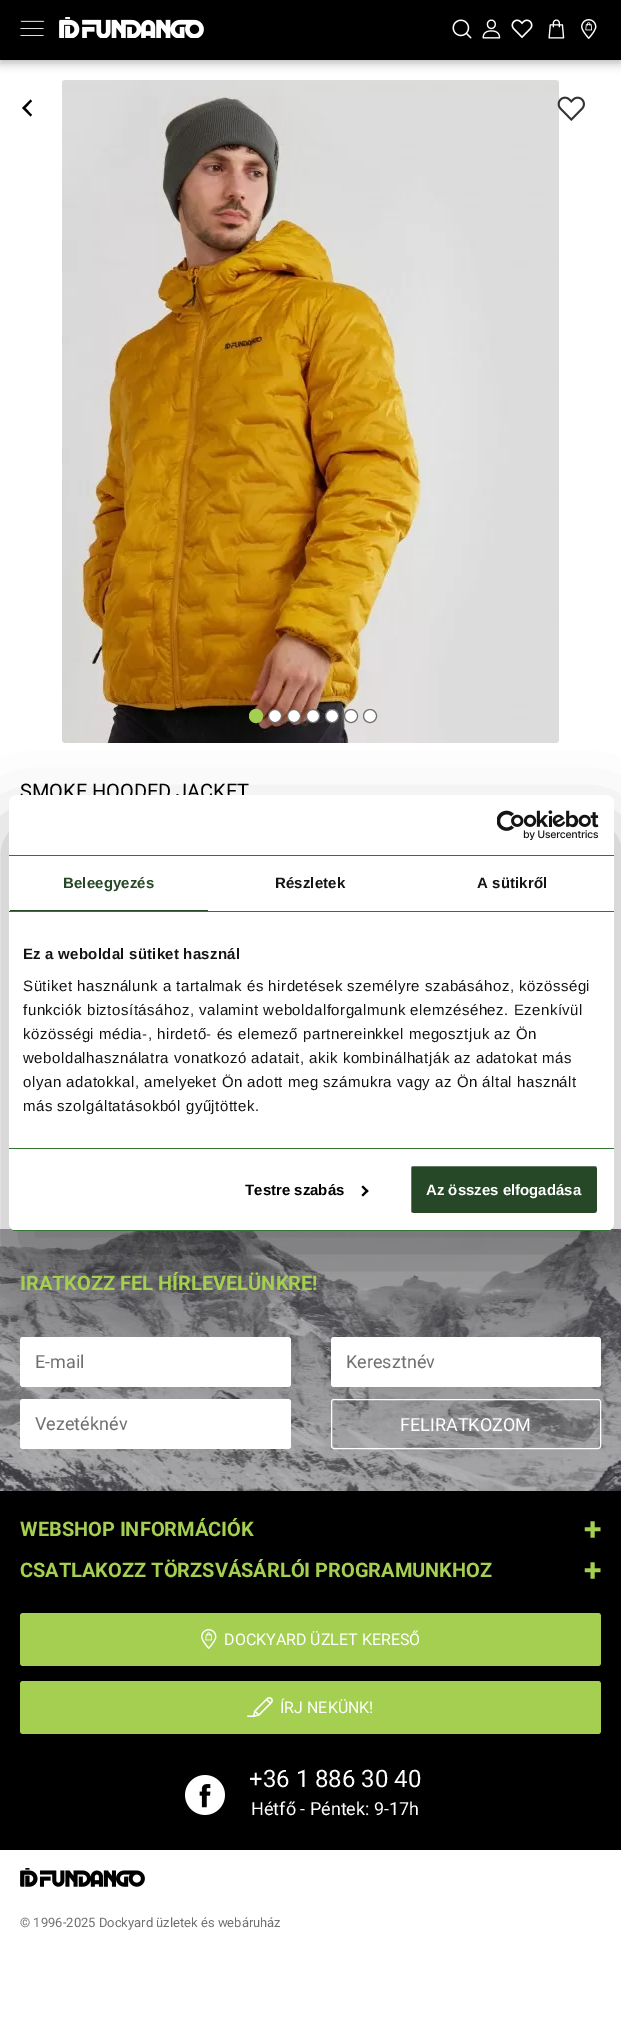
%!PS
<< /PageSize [621 2026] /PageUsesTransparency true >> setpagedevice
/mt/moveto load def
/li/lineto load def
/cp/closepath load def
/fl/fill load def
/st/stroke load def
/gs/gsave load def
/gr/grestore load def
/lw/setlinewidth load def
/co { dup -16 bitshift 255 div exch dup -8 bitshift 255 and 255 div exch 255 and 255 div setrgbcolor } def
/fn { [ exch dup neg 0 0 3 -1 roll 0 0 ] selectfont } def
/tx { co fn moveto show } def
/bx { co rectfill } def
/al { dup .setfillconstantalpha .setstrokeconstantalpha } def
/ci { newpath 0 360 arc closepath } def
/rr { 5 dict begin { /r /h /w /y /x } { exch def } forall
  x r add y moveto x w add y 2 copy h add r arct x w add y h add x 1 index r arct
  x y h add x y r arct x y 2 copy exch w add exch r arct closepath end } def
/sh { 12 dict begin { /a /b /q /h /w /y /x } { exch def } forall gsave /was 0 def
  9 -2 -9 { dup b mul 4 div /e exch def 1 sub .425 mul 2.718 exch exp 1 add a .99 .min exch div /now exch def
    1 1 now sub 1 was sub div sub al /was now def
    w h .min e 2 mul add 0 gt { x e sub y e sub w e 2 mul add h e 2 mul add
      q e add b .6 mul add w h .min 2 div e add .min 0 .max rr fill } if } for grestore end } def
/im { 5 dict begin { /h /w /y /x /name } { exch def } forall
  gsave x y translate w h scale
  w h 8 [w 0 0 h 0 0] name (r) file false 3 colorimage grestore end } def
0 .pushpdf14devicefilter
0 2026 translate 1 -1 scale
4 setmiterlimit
0 0 621 2026 16#FFFFFF bx
16#000000 co
0 3 621 60 0 5 .29 sh
0 0 621 60 16#000000 bx
(media/1.raw) 20 20 25 16 im
(media/2.raw) 59 17 145 21 im
(media/3.raw) 452 19 20 20 im
(media/4.raw) 482 19 19 20 im
(media/5.raw) 511 19 22 20 im
(media/6.raw) 548 19 17 20 im
(media/7.raw) 581 19 16 20 im
(media/8.raw) 62 80 497 663 im
16#A4CF51 co
256 716 6.5 ci gs fl gr
st
16#FFFFFF co
275 716 6.5 ci gs fl gr
16#707070 co
st
16#FFFFFF co
294 716 6.5 ci gs fl gr
16#707070 co
st
16#FFFFFF co
313 716 6.5 ci gs fl gr
16#707070 co
st
16#FFFFFF co
332 716 6.5 ci gs fl gr
16#707070 co
st
16#FFFFFF co
351 716 6.5 ci gs fl gr
16#707070 co
st
16#FFFFFF co
370 716 6.5 ci gs fl gr
16#707070 co
st
16#000000 co
32 101 mt 30.5 99.5 li 22 108 li 30.5 116.5 li 32 115 li 25.5 108 li cp fl
(media/9.raw) 557 96 28 25 im
(media/11.raw) 0 1229 621 262 im
16#FFFFFF co
20 1337 271 50 3 rr fl
331 1337 270 50 3 rr fl
16#000000 co
9 827 605 436 8 34 .3 sh
16#FFFFFF co
20 1399 271 50 3 rr fl
331.5 1399.5 269 49 2.5 rr st
0 1491 621 359 16#000000 bx
16#A4CF51 co
20 1613 581 53 3 rr fl
(media/12.raw) 201 1629 16 20 im
20 1681 581 53 3 rr fl
(media/13.raw) 247 1697 26 20 im
(media/14.raw) 185 1775 40 40 im
(media/15.raw) 20 1868 125 19 im
(SMOKE HOODED JACKET) 20 798 /Roboto-Regular 20 16#000000 tx
16#FFFFFF co
9 795 605 436 8 rr fl
9 855 605 1 16#347334 bx
(media/10.raw) 497 810 102 30 im
9 911 605 1 16#347334 bx
10 910 198 1 16#274827 bx
/LiberationSans-Bold 15 fn
63 888 mt .1 0 (Beleegyezés) ashow
16#141414 co
275 888 mt .1 0 (Részletek) ashow
477 888 mt .1 0 (A sütikről) ashow
9 1148 605 1 16#347334 bx
16#141414 co
23 959 mt .25 0 (Ez a weboldal sütiket használ) ashow
/LiberationSans-Regular 15 fn
23 991 mt .5 0 (Sütiket használunk a tartalmak és hirdetések személyre szabásához, közösségi) ashow
23 1015 mt .5 0 (funkciók biztosításához, valamint weboldalforgalmunk elemzéséhez. Ezenkívül) ashow
23 1039 mt .5 0 (közösségi média-, hirdető- és elemező partnereinkkel megosztjuk az Ön) ashow
23 1063 mt .5 0 (weboldalhasználatra vonatkozó adatait, akik kombinálhatják az adatokat más) ashow
23 1087 mt .5 0 (olyan adatokkal, amelyeket Ön adott meg számukra vagy az Ön által használt) ashow
23 1111 mt .5 0 (más szolgáltatásokból gyűjtöttek.) ashow
gs
9 795 605 436 8 rr clip newpath
9 1230 605 1 16#347334 bx
gr
(Testre szabás) 245 1195 /LiberationSans-Bold 15 16#000000 tx
363 1185.5 mt 368.5 1191 li 367 1192.5 li 361.5 1187 li cp fl
367 1189.5 mt 368.5 1191 li 363 1196.5 li 361.5 1195 li cp fl
16#274827 co
410 1165 188 49 3 rr gs fl gr
16#FFFFFF co
2 lw
st
(Az összes elfogadása) 426 1195 /LiberationSans-Bold 15 16#FFFFFF tx
(IRATKOZZ FEL HÍRLEVELÜNKRE!) 20 1290 /Roboto-Bold 20 16#A4CF51 tx
(E-mail) 35 1368 /Roboto-Regular 18 16#707070 tx
(Keresztnév) 346 1368 /Roboto-Regular 18 16#707070 tx
(Vezetéknév) 35 1430 /Roboto-Regular 18 16#707070 tx
(FELIRATKOZOM) 400 1431 /Roboto-Regular 18 16#FFFFFF tx
(WEBSHOP INFORMÁCIÓK) 20 1536 /Roboto-Bold 20 16#A4CF51 tx
(+) 584 1540 /Roboto-Bold 32 16#A4CF51 tx
(CSATLAKOZZ TÖRZSVÁSÁRLÓI PROGRAMUNKHOZ) 20 1577 /Roboto-Bold 20 16#A4CF51 tx
(+) 584 1581 /Roboto-Bold 32 16#A4CF51 tx
(DOCKYARD ÜZLET KERESŐ) 224 1645 /Roboto-Regular 16 16#FFFFFF tx
(ÍRJ NEKÜNK!) 280 1713 /Roboto-Regular 16 16#FFFFFF tx
(+36 1 886 30 40) 249 1787 /Roboto-Regular 24 16#FFFFFF tx
(Hétfő - Péntek: 9-17h) 251 1815 /Roboto-Regular 18 16#FFFFFF tx
(© 1996-2025 Dockyard üzletek és webáruház) 20 1927 /Roboto-Regular 13 16#707070 tx
.poppdf14devicefilter showpage
